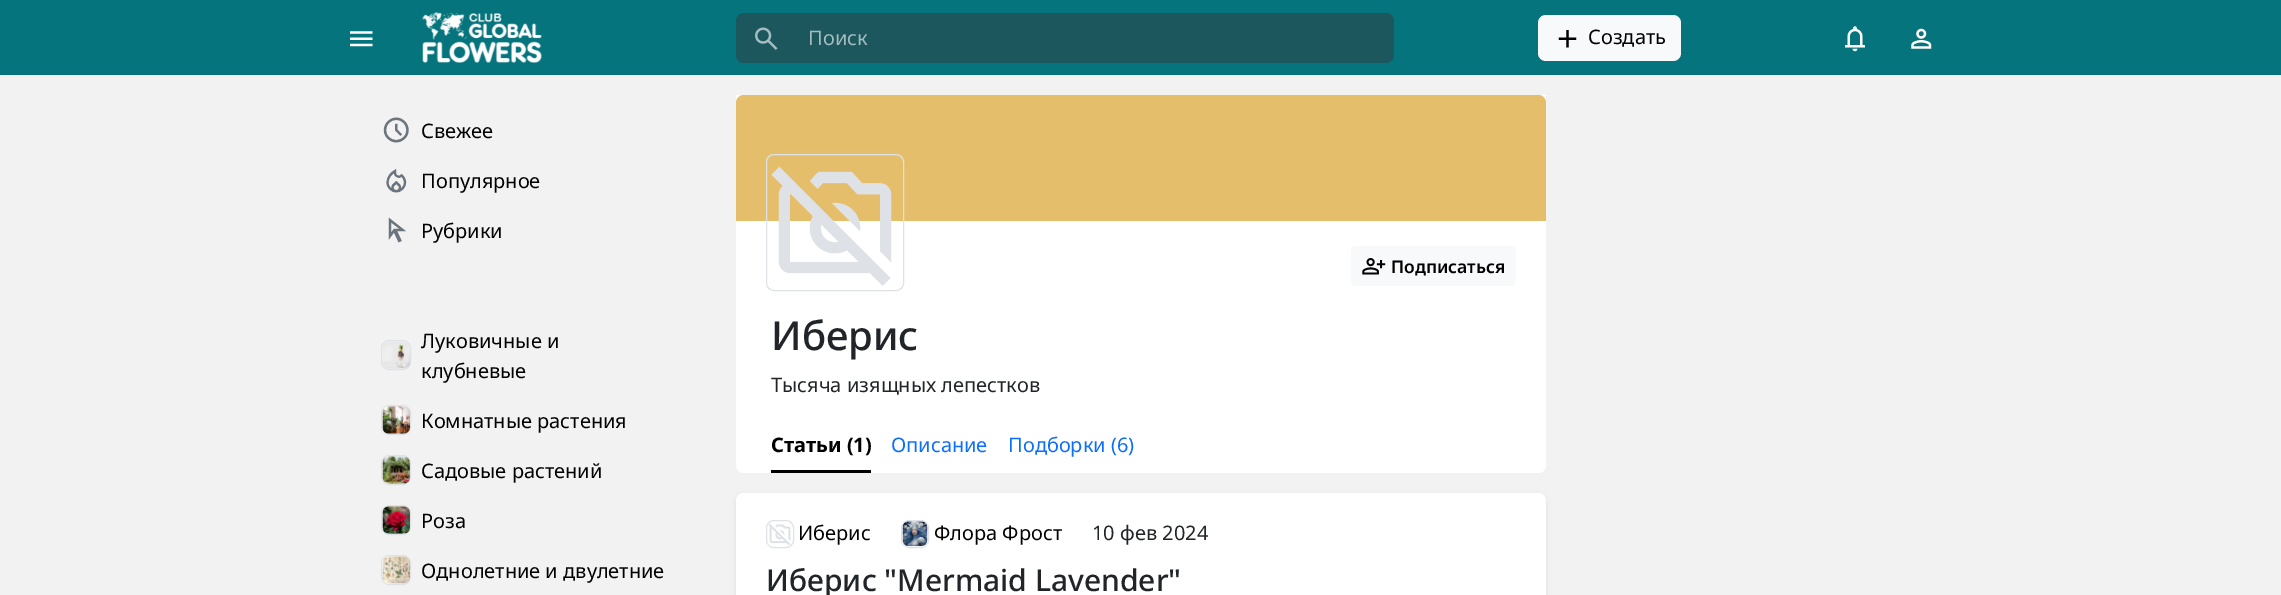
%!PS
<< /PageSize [2281 595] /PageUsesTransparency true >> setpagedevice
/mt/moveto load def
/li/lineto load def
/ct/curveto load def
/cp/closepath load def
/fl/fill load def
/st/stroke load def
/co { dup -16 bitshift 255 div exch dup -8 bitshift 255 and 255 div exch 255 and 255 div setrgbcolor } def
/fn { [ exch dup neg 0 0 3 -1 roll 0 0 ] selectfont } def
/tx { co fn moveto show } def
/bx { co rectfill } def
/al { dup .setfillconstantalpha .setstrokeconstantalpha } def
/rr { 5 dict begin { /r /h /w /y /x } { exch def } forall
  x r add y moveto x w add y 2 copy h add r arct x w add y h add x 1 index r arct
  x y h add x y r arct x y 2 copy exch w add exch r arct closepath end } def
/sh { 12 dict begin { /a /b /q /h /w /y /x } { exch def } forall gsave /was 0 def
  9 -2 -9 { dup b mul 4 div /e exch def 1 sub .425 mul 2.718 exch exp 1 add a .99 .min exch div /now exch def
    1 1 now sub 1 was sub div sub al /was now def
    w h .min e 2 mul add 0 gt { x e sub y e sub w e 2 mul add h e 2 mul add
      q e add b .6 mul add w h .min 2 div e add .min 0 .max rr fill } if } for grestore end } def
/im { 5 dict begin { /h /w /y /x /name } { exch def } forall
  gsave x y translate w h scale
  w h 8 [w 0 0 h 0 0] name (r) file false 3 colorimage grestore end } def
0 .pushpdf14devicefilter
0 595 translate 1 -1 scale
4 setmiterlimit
0 0 2281 595 16#F2F2F2 bx
0 0 2281 75 16#06747C bx
(media/1.raw) 350 31 23 16 im
(media/2.raw) 421 12 121 51 im
16#1B575D co
736 13 658 50 8 rr fl
(media/3.raw) 755 27 23 23 im
16#F8F9FA co
1538 15 143 46 8 rr fl
(media/4.raw) 1558 30 19 18 im
(media/5.raw) 1845 26 20 26 im
(media/6.raw) 1911 28 21 21 im
(media/7.raw) 383 117 26 26 im
(media/8.raw) 386 168 21 25 im
(media/9.raw) 388 217 18 26 im
16#DEE2E6 co
381.5 340.5 29 29 7.5 rr st
(media/10.raw) 383 341 27 28 im
381.5 405.5 29 29 7.5 rr st
(media/11.raw) 382 406 28 28 im
381.5 455.5 29 29 7.5 rr st
(media/12.raw) 382 456 28 28 im
381.5 505.5 29 29 7.5 rr st
(media/13.raw) 382 506 28 28 im
381.5 555.5 29 29 7.5 rr st
(media/14.raw) 382 556 28 28 im
16#FFFFFF co
736 95 mt 1546 95 li 1546 465 li 1546 469.5 1542.5 473 1538 473 ct 744 473 li 739.5 473 736 469.5 736 465 ct cp fl
16#E5BE6C co
744 95 mt 1538 95 li 1542.5 95 1546 98.5 1546 103 ct 1546 221 li 736 221 li 736 103 li 736 98.5 739.5 95 744 95 ct cp fl
16#DEE2E6 co
766.5 154.5 137 136 7.5 rr st
(media/15.raw) 771 166 121 120 im
16#F8F9FA co
1351 246 165 40 5 rr fl
(media/16.raw) 1362 258 24 17 im
771 470 100 3 16#000000 bx
736 495 810 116 8 2.5 .07 sh
16#FFFFFF co
736 493 810 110 8 rr fl
16#DEE2E6 co
766.5 520.5 27 27 7.5 rr st
(media/17.raw) 768 523 23 23 im
901.5 520.5 27 27 7.5 rr st
(media/18.raw) 902 521 26 26 im
(Поиск) 808 45 /NotoSans-Regular 20 16#A4BCBE tx
(Создать) 1588 44 /NotoSans-Regular 20 16#000000 tx
(Свежее) 421 138 /NotoSans-Regular 20 16#000000 tx
(Популярное) 421 188 /NotoSans-Regular 20 16#000000 tx
(Рубрики) 421 238 /NotoSans-Regular 20 16#000000 tx
(Луковичные и) 421 348 /NotoSans-Regular 20 16#000000 tx
(клубневые) 421 378 /NotoSans-Regular 20 16#000000 tx
(Комнатные растения) 421 428 /NotoSans-Regular 20 16#000000 tx
(Садовые растений) 421 478 /NotoSans-Regular 20 16#000000 tx
(Роза) 421 528 /NotoSans-Regular 20 16#000000 tx
(Однолетние и двулетние) 421 578 /NotoSans-Regular 20 16#000000 tx
(Подписаться) 1391 273 /NotoSans-SemiBold 17.5 16#000000 tx
(Иберис) 771 350 /NotoSans-Medium 40 16#212529 tx
(Тысяча изящных лепестков) 771 392 /NotoSans-Regular 20 16#212529 tx
(Статьи \(1\)) 771 452 /NotoSans-Bold 20 16#000000 tx
(Описание) 891 452 /NotoSans-Regular 20 16#0D6EFD tx
(Подборки \(6\)) 1008 452 /NotoSans-Regular 20 16#0D6EFD tx
(Иберис) 798 540 /NotoSans-Regular 20 16#000000 tx
(Флора Фрост) 934 540 /NotoSans-Regular 20 16#000000 tx
(10 фев 2024) 1092 540 /NotoSans-Regular 20 16#212529 tx
(Иберис "Mermaid Lavender") 766 591 /NotoSans-Medium 30 16#212529 tx
.poppdf14devicefilter showpage
